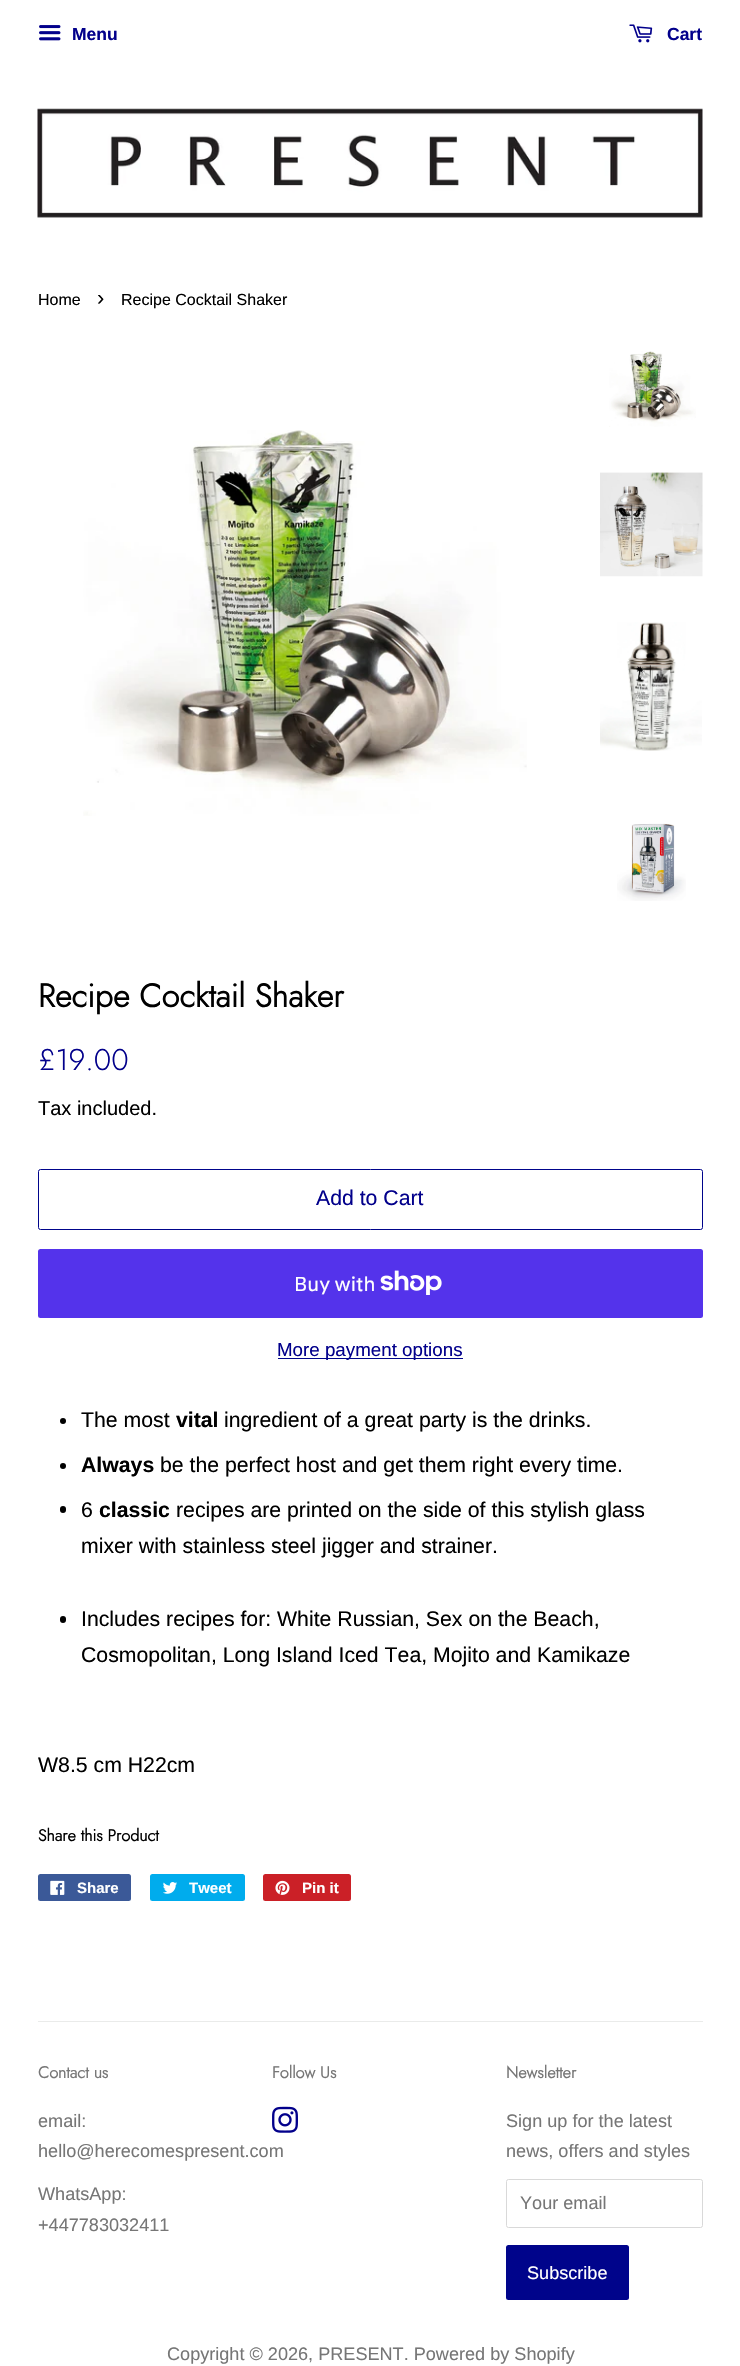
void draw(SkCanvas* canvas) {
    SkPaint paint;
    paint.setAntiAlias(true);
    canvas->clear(0xFFFFFFFF);
    canvas->drawImageRect(SkImages::DeferredFromEncodedData(SkData::MakeFromFileName("img1.png")), SkRect::MakeXYWH(39, 25, 22, 16), SkSamplingOptions());
    SkFont font1(fontMgr->matchFamilyStyle("Arimo", SkFontStyle::Bold()), 17.5f);
    font1.setSubpixel(true);
    paint.setColor(0xFF02008B);
    canvas->drawString("Menu", 72, 40, font1, paint);
    canvas->drawImageRect(SkImages::DeferredFromEncodedData(SkData::MakeFromFileName("img2.png")), SkRect::MakeXYWH(629, 24, 24, 19), SkSamplingOptions());
    canvas->drawString("Cart", 667, 40, font1, paint);
    canvas->drawImageRect(SkImages::DeferredFromEncodedData(SkData::MakeFromFileName("img3.png")), SkRect::MakeXYWH(37, 108, 666, 110), SkSamplingOptions());
    SkFont font2(fontMgr->matchFamilyStyle("Arimo", SkFontStyle::Normal()), 16);
    font2.setSubpixel(true);
    paint.setColor(0xFF000000);
    canvas->drawString("Home", 38, 305, font2, paint);
    SkFont font3(fontMgr->matchFamilyStyle("Arimo", SkFontStyle::Normal()), 22);
    font3.setSubpixel(true);
    canvas->drawString("›", 97, 305, font3, paint);
    canvas->drawString("Recipe Cocktail Shaker", 121, 305, font2, paint);
    canvas->drawImageRect(SkImages::DeferredFromEncodedData(SkData::MakeFromFileName("img4.png")), SkRect::MakeXYWH(83, 430, 444, 386), SkSamplingOptions());
    canvas->drawImageRect(SkImages::DeferredFromEncodedData(SkData::MakeFromFileName("img5.png")), SkRect::MakeXYWH(609, 351, 87, 76), SkSamplingOptions());
    canvas->drawImageRect(SkImages::DeferredFromEncodedData(SkData::MakeFromFileName("img6.png")), SkRect::MakeXYWH(600, 472, 103, 105), SkSamplingOptions());
    canvas->drawImageRect(SkImages::DeferredFromEncodedData(SkData::MakeFromFileName("img7.png")), SkRect::MakeXYWH(600, 622, 102, 129), SkSamplingOptions());
    canvas->drawImageRect(SkImages::DeferredFromEncodedData(SkData::MakeFromFileName("img8.png")), SkRect::MakeXYWH(617, 823, 69, 78), SkSamplingOptions());
    SkFont font4(fontMgr->matchFamilyStyle("Jost", SkFontStyle::Bold()), 32.5f);
    font4.setSubpixel(true);
    canvas->drawString("Recipe Cocktail Shaker", 38, 1007, font4, paint);
    SkFont font5(fontMgr->matchFamilyStyle("Jost", SkFontStyle(300, SkFontStyle::kNormal_Width, SkFontStyle::kUpright_Slant)), 30);
    font5.setSubpixel(true);
    paint.setColor(0xFF02008B);
    canvas->drawString("£19.00", 38, 1070, font5, paint);
    SkFont font6(fontMgr->matchFamilyStyle("Arimo", SkFontStyle::Normal()), 20);
    font6.setSubpixel(true);
    paint.setColor(0xFF000000);
    canvas->drawString("Tax included.", 38, 1115, font6, paint);
    paint.setStyle(SkPaint::kStroke_Style);
    paint.setStrokeWidth(1);
    paint.setColor(0xFF00048B);
    canvas->drawRoundRect(SkRect::MakeXYWH(38.5f, 1169.5f, 664, 60), 2, 2, paint);
    SkFont font7(fontMgr->matchFamilyStyle("Arimo", SkFontStyle::Normal()), 21.25f);
    font7.setSubpixel(true);
    paint.setStyle(SkPaint::kFill_Style);
    paint.setColor(0xFF02008B);
    canvas->drawString("Add to Cart", 316, 1205, font7, paint);
    paint.setColor(0xFF5433EB);
    canvas->drawRoundRect(SkRect::MakeXYWH(38, 1249, 665, 69), 2.5f, 2.5f, paint);
    SkFont font8(fontMgr->matchFamilyStyle("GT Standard", SkFontStyle::Normal()), 20);
    font8.setSubpixel(true);
    paint.setColor(0xFFFFFFFF);
    canvas->drawString("Buy with", 294, 1291, font8, paint);
    canvas->drawImageRect(SkImages::DeferredFromEncodedData(SkData::MakeFromFileName("img9.png")), SkRect::MakeXYWH(380, 1270, 62, 25), SkSamplingOptions());
    paint.setColor(0xFF00048B);
    canvas->drawRect(SkRect::MakeXYWH(278, 1358, 185, 1), paint);
    SkFont font9(fontMgr->matchFamilyStyle("Arimo", SkFontStyle::Normal()), 18.75f);
    font9.setSubpixel(true);
    paint.setColor(0xFF02008B);
    canvas->drawString("More payment options", 277, 1356, font9, paint);
    paint.setColor(0xFF000000);
    canvas->drawCircle(63, 1421, 3, paint);
    canvas->drawString("The most", 81, 1427, font7, paint);
    SkFont font10(fontMgr->matchFamilyStyle("Arimo", SkFontStyle::Bold()), 21.25f);
    font10.setSubpixel(true);
    canvas->drawString("vital", 176, 1427, font10, paint);
    canvas->drawString("ingredient of a great party is the drinks.", 224, 1427, font7, paint);
    canvas->drawCircle(63, 1466, 3, paint);
    canvas->drawString("Always", 81, 1472, font10, paint);
    canvas->drawString("be the perfect host and get them right every time.", 160, 1472, font7, paint);
    canvas->drawRoundRect(SkRect::MakeXYWH(60, 1506, 6, 7), 3, 3, paint);
    canvas->drawString("6", 81, 1517, font7, paint);
    canvas->drawString("classic", 99, 1517, font10, paint);
    canvas->drawString("recipes are printed on the side of this stylish glass", 176, 1517, font7, paint);
    canvas->drawString("mixer with stainless steel jigger and strainer.", 81, 1553, font7, paint);
    canvas->drawRoundRect(SkRect::MakeXYWH(60, 1616, 6, 7), 3, 3, paint);
    canvas->drawString("Includes recipes for: White Russian, Sex on the Beach,", 81, 1626, font7, paint);
    canvas->drawString("Cosmopolitan, Long Island Iced Tea, Mojito and Kamikaze", 81, 1662, font7, paint);
    canvas->drawString("W8.5 cm H22cm", 38, 1772, font7, paint);
    SkFont font11(fontMgr->matchFamilyStyle("Jost", SkFontStyle::Bold()), 16.25f);
    font11.setSubpixel(true);
    canvas->drawString("Share this Product", 38, 1841, font11, paint);
    paint.setColor(0xFF3B5998);
    canvas->drawRoundRect(SkRect::MakeXYWH(38, 1874, 93, 27), 2.5f, 2.5f, paint);
    canvas->drawImageRect(SkImages::DeferredFromEncodedData(SkData::MakeFromFileName("img10.png")), SkRect::MakeXYWH(50, 1880, 15, 15), SkSamplingOptions());
    SkFont font12(fontMgr->matchFamilyStyle("Liberation Sans", SkFontStyle::Bold()), 15);
    font12.setSubpixel(true);
    paint.setColor(0xFFFFFFFF);
    canvas->drawString("Share", 77, 1893, font12, paint);
    paint.setColor(0xFF00ACED);
    canvas->drawRoundRect(SkRect::MakeXYWH(150, 1874, 95, 27), 2.5f, 2.5f, paint);
    canvas->drawImageRect(SkImages::DeferredFromEncodedData(SkData::MakeFromFileName("img11.png")), SkRect::MakeXYWH(163, 1882, 14, 12), SkSamplingOptions());
    paint.setColor(0xFFFFFFFF);
    canvas->drawString("Tweet", 189, 1893, font12, paint);
    paint.setColor(0xFFCB2027);
    canvas->drawRoundRect(SkRect::MakeXYWH(263, 1874, 88, 27), 2.5f, 2.5f, paint);
    canvas->drawImageRect(SkImages::DeferredFromEncodedData(SkData::MakeFromFileName("img12.png")), SkRect::MakeXYWH(275, 1880, 15, 15), SkSamplingOptions());
    paint.setColor(0xFFFFFFFF);
    canvas->drawString("Pin it", 302, 1893, font12, paint);
    paint.setColor(0xFFEAEBEA);
    canvas->drawRect(SkRect::MakeXYWH(38, 2021, 665, 1), paint);
    paint.setColor(0xFF767676);
    canvas->drawString("Contact us", 38, 2078, font11, paint);
    SkFont font13(fontMgr->matchFamilyStyle("Arimo", SkFontStyle::Normal()), 18.1f);
    font13.setSubpixel(true);
    canvas->drawString("email:", 38, 2127, font13, paint);
    canvas->drawString("hello@herecomespresent.com", 38, 2157, font13, paint);
    canvas->drawString("WhatsApp:", 38, 2200, font13, paint);
    canvas->drawString("+447783032411", 38, 2231, font13, paint);
    canvas->drawString("Follow Us", 272, 2078, font11, paint);
    canvas->drawImageRect(SkImages::DeferredFromEncodedData(SkData::MakeFromFileName("img13.png")), SkRect::MakeXYWH(272, 2106, 26, 27), SkSamplingOptions());
    canvas->drawString("Newsletter", 506, 2078, font11, paint);
    canvas->drawString("Sign up for the latest", 506, 2127, font13, paint);
    canvas->drawString("news, offers and styles", 506, 2157, font13, paint);
    paint.setStyle(SkPaint::kStroke_Style);
    paint.setColor(0xFFD9D9D9);
    canvas->drawRoundRect(SkRect::MakeXYWH(506.5f, 2179.5f, 196, 48), 2, 2, paint);
    paint.setStyle(SkPaint::kFill_Style);
    paint.setColor(0xFF767676);
    canvas->drawString("Your email", 520, 2209, font13, paint);
    paint.setColor(0xFF00048B);
    canvas->drawRoundRect(SkRect::MakeXYWH(506, 2245, 123, 55), 2.5f, 2.5f, paint);
    paint.setColor(0xFFFFFFFF);
    canvas->drawString("Subscribe", 527, 2279, font13, paint);
    paint.setColor(0xFF767676);
    canvas->drawString("Copyright © 2026, PRESENT. Powered by Shopify", 167, 2360, font13, paint);
}
